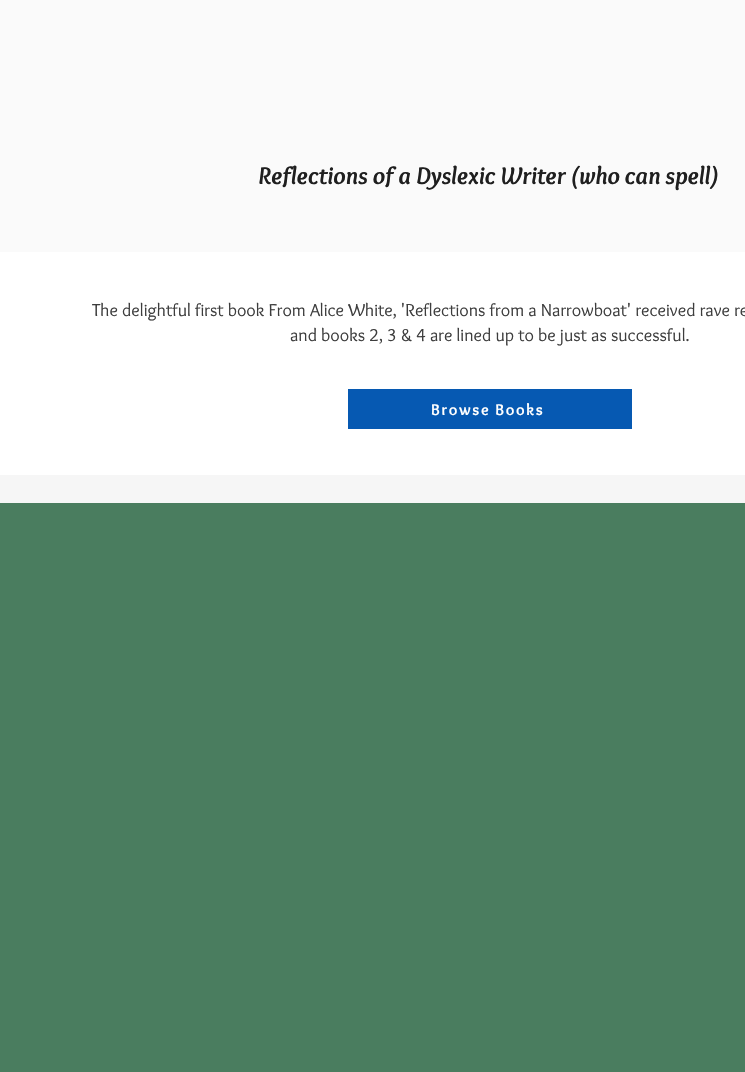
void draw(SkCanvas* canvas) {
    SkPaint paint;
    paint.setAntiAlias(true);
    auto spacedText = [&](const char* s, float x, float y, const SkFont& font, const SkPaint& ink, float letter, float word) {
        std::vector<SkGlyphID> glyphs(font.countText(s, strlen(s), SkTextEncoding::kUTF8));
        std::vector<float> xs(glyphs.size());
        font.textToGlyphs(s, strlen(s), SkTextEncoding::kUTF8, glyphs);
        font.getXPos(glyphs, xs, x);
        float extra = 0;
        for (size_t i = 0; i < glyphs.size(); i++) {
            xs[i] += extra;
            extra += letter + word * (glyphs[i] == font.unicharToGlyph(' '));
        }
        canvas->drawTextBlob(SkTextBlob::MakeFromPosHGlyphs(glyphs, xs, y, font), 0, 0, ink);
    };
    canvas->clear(0xFFF6F6F6);
    paint.setColor(0xFFFAFAFA);
    canvas->drawRect(SkRect::MakeXYWH(0, 0, 745, 252), paint);
    SkFont font1(fontMgr->matchFamilyStyle("Overlock", SkFontStyle::BoldItalic()), 25);
    font1.setSubpixel(true);
    paint.setColor(0xFF1F1F1F);
    canvas->drawString("Reflections of a Dyslexic Writer (who can spell)", 258, 184, font1, paint);
    paint.setColor(0xFFFFFFFF);
    canvas->drawRect(SkRect::MakeXYWH(0, 252, 745, 223), paint);
    SkFont font2(fontMgr->matchFamilyStyle("Overlock", SkFontStyle::Normal()), 18);
    font2.setSubpixel(true);
    paint.setColor(0xFF3D3D3D);
    canvas->drawString("The delightful first book From Alice White, 'Reflections from a Narrowboat' received rave re", 92, 316, font2, paint);
    canvas->drawString("and books 2, 3 & 4 are lined up to be just as successful.", 290, 341, font2, paint);
    paint.setColor(0xFF0659B2);
    canvas->drawRect(SkRect::MakeXYWH(348, 389, 284, 40), paint);
    SkFont font3(fontMgr->matchFamilyStyle("Overlock", SkFontStyle::Bold()), 16);
    font3.setSubpixel(true);
    paint.setColor(0xFFFFFFFF);
    spacedText("Browse Books", 431, 415, font3, paint, 1.6f, 0);
    paint.setColor(0xFF4A7D5F);
    canvas->drawRect(SkRect::MakeXYWH(0, 503, 745, 569), paint);
}
